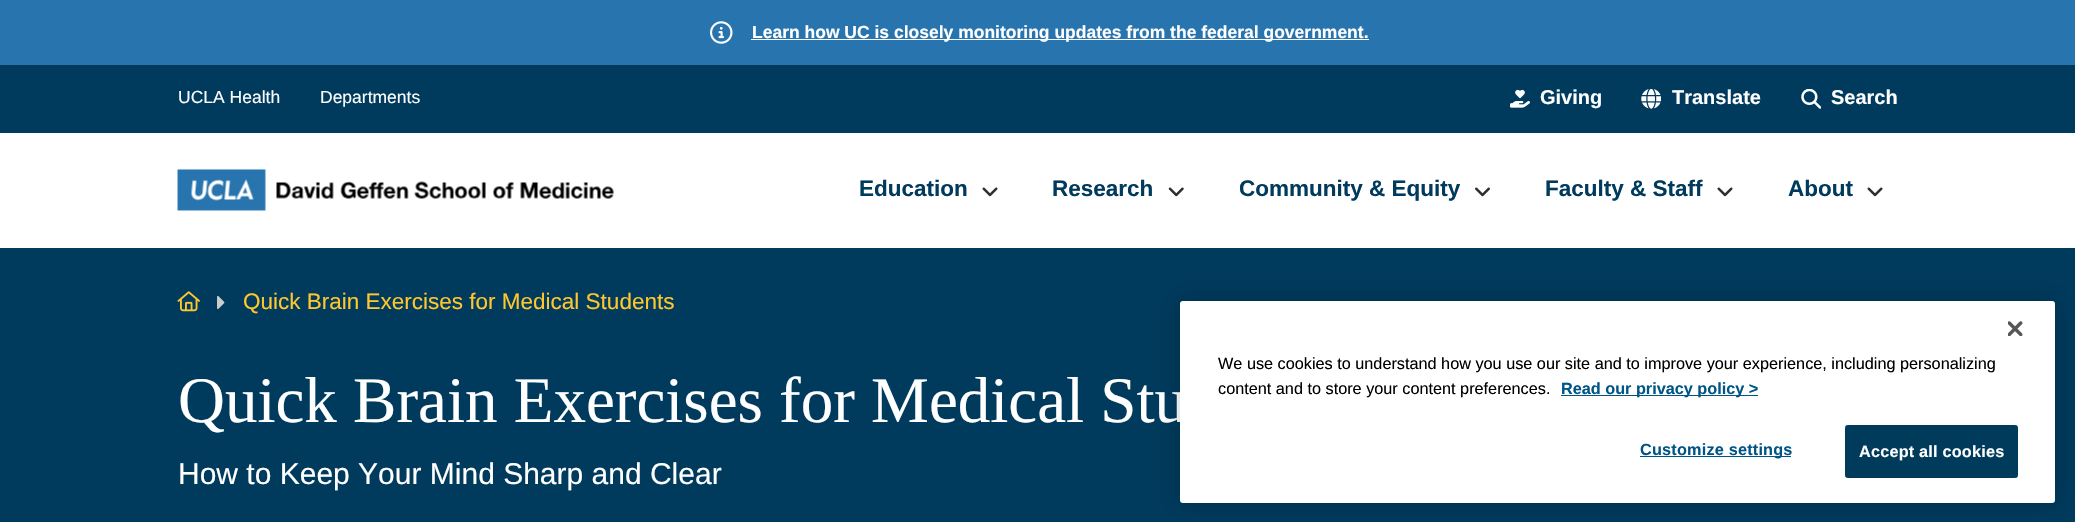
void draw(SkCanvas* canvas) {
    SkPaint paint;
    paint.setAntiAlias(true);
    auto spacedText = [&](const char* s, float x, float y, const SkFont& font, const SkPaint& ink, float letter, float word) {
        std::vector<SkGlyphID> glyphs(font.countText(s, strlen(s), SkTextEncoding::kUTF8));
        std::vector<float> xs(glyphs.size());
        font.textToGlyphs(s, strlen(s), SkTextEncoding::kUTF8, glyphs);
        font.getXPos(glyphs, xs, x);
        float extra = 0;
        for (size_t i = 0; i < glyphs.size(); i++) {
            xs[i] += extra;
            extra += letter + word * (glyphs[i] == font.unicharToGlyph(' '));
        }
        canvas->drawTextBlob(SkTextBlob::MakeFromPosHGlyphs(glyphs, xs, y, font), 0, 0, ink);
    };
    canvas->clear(0xFF003A5C);
    paint.setColor(0xFFFFFFFF);
    canvas->drawRect(SkRect::MakeXYWH(0, 133, 2075, 115), paint);
    paint.setColor(0xFF2874AF);
    canvas->drawRect(SkRect::MakeXYWH(0, 0, 2075, 65), paint);
    canvas->drawImageRect(SkImages::DeferredFromEncodedData(SkData::MakeFromFileName("img1.png")), SkRect::MakeXYWH(710, 21, 23, 23), SkSamplingOptions());
    paint.setColor(0xFFFFFFFF);
    canvas->drawRect(SkRect::MakeXYWH(751, 39, 618, 1), paint);
    SkFont font1(fontMgr->matchFamilyStyle("Liberation Sans", SkFontStyle::Bold()), 17.5f);
    font1.setSubpixel(true);
    canvas->drawString("Learn how UC is closely monitoring updates from the federal government.", 752, 38, font1, paint);
    SkFont font2(fontMgr->matchFamilyStyle("Liberation Sans", SkFontStyle::Normal()), 17.5f);
    font2.setSubpixel(true);
    canvas->drawString("UCLA Health", 178, 103, font2, paint);
    canvas->drawString("Departments", 320, 103, font2, paint);
    canvas->drawImageRect(SkImages::DeferredFromEncodedData(SkData::MakeFromFileName("img2.png")), SkRect::MakeXYWH(1510, 89, 20, 19), SkSamplingOptions());
    SkFont font3(fontMgr->matchFamilyStyle("Liberation Sans", SkFontStyle::Bold()), 20);
    font3.setSubpixel(true);
    canvas->drawString("Giving", 1540, 104, font3, paint);
    canvas->drawImageRect(SkImages::DeferredFromEncodedData(SkData::MakeFromFileName("img3.png")), SkRect::MakeXYWH(1641, 89, 20, 20), SkSamplingOptions());
    canvas->drawString("Translate", 1672, 104, font3, paint);
    canvas->drawImageRect(SkImages::DeferredFromEncodedData(SkData::MakeFromFileName("img4.png")), SkRect::MakeXYWH(1801, 89, 20, 20), SkSamplingOptions());
    canvas->drawString("Search", 1831, 104, font3, paint);
    canvas->drawImageRect(SkImages::DeferredFromEncodedData(SkData::MakeFromFileName("img5.png")), SkRect::MakeXYWH(177, 168, 437, 43), SkSamplingOptions());
    SkFont font4(fontMgr->matchFamilyStyle("Liberation Sans", SkFontStyle::Bold()), 22.5f);
    font4.setSubpixel(true);
    paint.setColor(0xFF003A5C);
    canvas->drawString("Education", 859, 196, font4, paint);
    canvas->drawImageRect(SkImages::DeferredFromEncodedData(SkData::MakeFromFileName("img6.png")), SkRect::MakeXYWH(982, 187, 16, 10), SkSamplingOptions());
    canvas->drawString("Research", 1052, 196, font4, paint);
    canvas->drawImageRect(SkImages::DeferredFromEncodedData(SkData::MakeFromFileName("img7.png")), SkRect::MakeXYWH(1168, 187, 16, 10), SkSamplingOptions());
    canvas->drawString("Community & Equity", 1239, 196, font4, paint);
    canvas->drawImageRect(SkImages::DeferredFromEncodedData(SkData::MakeFromFileName("img8.png")), SkRect::MakeXYWH(1475, 187, 15, 10), SkSamplingOptions());
    canvas->drawString("Faculty & Staff", 1545, 196, font4, paint);
    canvas->drawImageRect(SkImages::DeferredFromEncodedData(SkData::MakeFromFileName("img6.png")), SkRect::MakeXYWH(1717, 187, 16, 10), SkSamplingOptions());
    canvas->drawString("About", 1788, 196, font4, paint);
    canvas->drawImageRect(SkImages::DeferredFromEncodedData(SkData::MakeFromFileName("img6.png")), SkRect::MakeXYWH(1867, 187, 16, 10), SkSamplingOptions());
    canvas->drawImageRect(SkImages::DeferredFromEncodedData(SkData::MakeFromFileName("img9.png")), SkRect::MakeXYWH(177, 291, 23, 21), SkSamplingOptions());
    canvas->drawImageRect(SkImages::DeferredFromEncodedData(SkData::MakeFromFileName("img10.png")), SkRect::MakeXYWH(217, 296, 8, 13), SkSamplingOptions());
    SkFont font5(fontMgr->matchFamilyStyle("Liberation Sans", SkFontStyle::Normal()), 22.5f);
    font5.setSubpixel(true);
    paint.setColor(0xFFFFC72E);
    canvas->drawString("Quick Brain Exercises for Medical Students", 243, 309, font5, paint);
    SkFont font6(fontMgr->matchFamilyStyle("Liberation Serif", SkFontStyle::Normal()), 65);
    font6.setSubpixel(true);
    paint.setColor(0xFFFFFFFF);
    canvas->drawString("Quick Brain Exercises for Medical Stu", 178, 422, font6, paint);
    SkFont font7(fontMgr->matchFamilyStyle("Liberation Sans", SkFontStyle::Normal()), 30);
    font7.setSubpixel(true);
    canvas->drawString("How to Keep Your Mind Sharp and Clear", 178, 484, font7, paint);
    paint.setColor(0x33000000);
    paint.setMaskFilter(SkMaskFilter::MakeBlur(kNormal_SkBlurStyle, 11));
    canvas->drawRoundRect(SkRect::MakeXYWH(1180, 301, 875, 202), 3, 3, paint);
    paint.setMaskFilter(nullptr);
    paint.setColor(0xFFFFFFFF);
    canvas->drawRoundRect(SkRect::MakeXYWH(1180, 301, 875, 202), 3, 3, paint);
    canvas->drawImageRect(SkImages::DeferredFromEncodedData(SkData::MakeFromFileName("img11.png")), SkRect::MakeXYWH(2008, 321, 15, 15), SkSamplingOptions());
    SkFont font8(fontMgr->matchFamilyStyle("Liberation Sans", SkFontStyle::Normal()), 16.25f);
    font8.setSubpixel(true);
    paint.setColor(0xFF000000);
    canvas->drawString("We use cookies to understand how you use our site and to improve your experience, including personalizing", 1218, 369, font8, paint);
    canvas->drawString("content and to store your content preferences.", 1218, 394, font8, paint);
    paint.setColor(0xFF005587);
    canvas->drawRect(SkRect::MakeXYWH(1561, 395, 197, 1), paint);
    SkFont font9(fontMgr->matchFamilyStyle("Liberation Sans", SkFontStyle::Bold()), 16.25f);
    font9.setSubpixel(true);
    canvas->drawString("Read our privacy policy >", 1561, 394, font9, paint);
    canvas->drawRect(SkRect::MakeXYWH(1640, 456, 151, 1), paint);
    spacedText("Customize settings", 1640, 455, font9, paint, 0.2f, 0);
    paint.setColor(0xFF003B5C);
    canvas->drawRoundRect(SkRect::MakeXYWH(1845.5f, 425.5f, 172, 52), 2, 2, paint);
    paint.setStyle(SkPaint::kStroke_Style);
    paint.setStrokeWidth(1);
    canvas->drawRoundRect(SkRect::MakeXYWH(1845.5f, 425.5f, 172, 52), 2, 2, paint);
    paint.setStyle(SkPaint::kFill_Style);
    paint.setColor(0xFFFFFFFF);
    spacedText("Accept all cookies", 1859, 457, font9, paint, 0.2f, 0);
}
